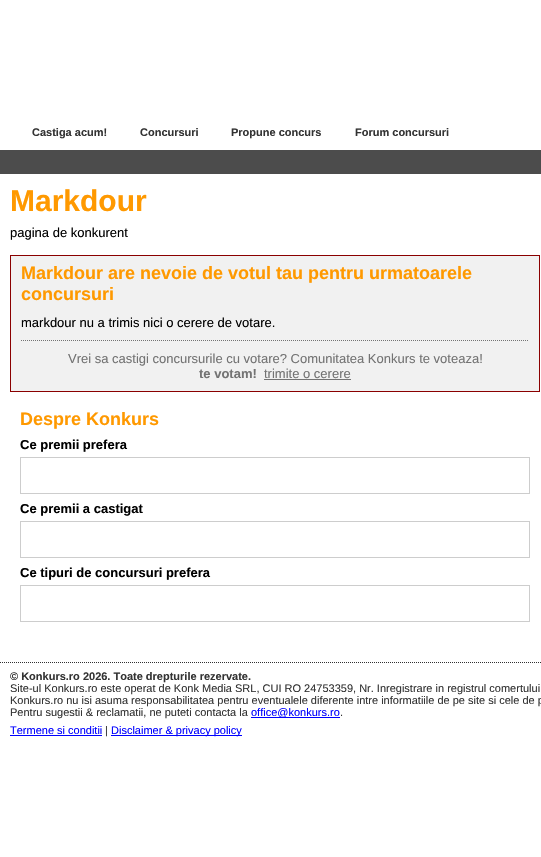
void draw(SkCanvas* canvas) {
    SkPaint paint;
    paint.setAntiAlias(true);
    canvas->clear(0xFFFFFFFF);
    SkFont font1(fontMgr->matchFamilyStyle("Liberation Sans", SkFontStyle::Bold()), 11);
    font1.setSubpixel(true);
    paint.setColor(0xFF333333);
    canvas->drawString("Castiga acum!", 32, 136, font1, paint);
    canvas->drawString("Concursuri", 140, 136, font1, paint);
    canvas->drawString("Propune concurs", 231, 136, font1, paint);
    canvas->drawString("Forum concursuri", 355, 136, font1, paint);
    paint.setColor(0xFF4C4C4C);
    canvas->drawRect(SkRect::MakeXYWH(0, 150, 541, 24), paint);
    SkFont font2(fontMgr->matchFamilyStyle("Liberation Sans", SkFontStyle::Bold()), 30);
    font2.setSubpixel(true);
    paint.setColor(0xFFFF9900);
    canvas->drawString("Markdour", 10, 211, font2, paint);
    SkFont font3(fontMgr->matchFamilyStyle("Liberation Sans", SkFontStyle::Normal()), 13);
    font3.setSubpixel(true);
    paint.setColor(0xFF000000);
    canvas->drawString("pagina de konkurent", 10, 237, font3, paint);
    paint.setColor(0xFFF1F1F1);
    canvas->drawRect(SkRect::MakeXYWH(10.5f, 255.5f, 529, 136), paint);
    paint.setStyle(SkPaint::kStroke_Style);
    paint.setStrokeWidth(1);
    paint.setColor(0xFF8A0000);
    canvas->drawRect(SkRect::MakeXYWH(10.5f, 255.5f, 529, 136), paint);
    SkFont font4(fontMgr->matchFamilyStyle("Liberation Sans", SkFontStyle::Bold()), 18);
    font4.setSubpixel(true);
    paint.setStyle(SkPaint::kFill_Style);
    paint.setColor(0xFFFF9900);
    canvas->drawString("Markdour are nevoie de votul tau pentru urmatoarele", 21, 279, font4, paint);
    canvas->drawString("concursuri", 21, 300, font4, paint);
    paint.setColor(0xFF000000);
    canvas->drawString("markdour nu a trimis nici o cerere de votare.", 21, 327, font3, paint);
    paint.setStyle(SkPaint::kStroke_Style);
    paint.setColor(0xFF737373);
    paint.setPathEffect(SkDashPathEffect::Make({{1, 1}}, 0));
    canvas->drawPath(SkPathBuilder().moveTo(21, 340.5f).lineTo(529, 340.5f).detach(), paint);
    paint.setPathEffect(nullptr);
    paint.setStyle(SkPaint::kFill_Style);
    canvas->drawString("Vrei sa castigi concursurile cu votare? Comunitatea Konkurs te voteaza!", 68, 363, font3, paint);
    SkFont font5(fontMgr->matchFamilyStyle("Liberation Sans", SkFontStyle::Bold()), 13);
    font5.setSubpixel(true);
    canvas->drawString("te votam!", 199, 378, font5, paint);
    canvas->drawString("trimite o cerere", 264, 378, font3, paint);
    canvas->drawRect(SkRect::MakeXYWH(264, 379, 87, 1), paint);
    paint.setColor(0xFFFF9900);
    canvas->drawString("Despre Konkurs", 20, 425, font4, paint);
    paint.setColor(0xFF000000);
    canvas->drawString("Ce premii prefera", 20, 449, font5, paint);
    paint.setStyle(SkPaint::kStroke_Style);
    paint.setColor(0xFFCDCDCD);
    canvas->drawRect(SkRect::MakeXYWH(20.5f, 457.5f, 509, 36), paint);
    paint.setStyle(SkPaint::kFill_Style);
    paint.setColor(0xFF000000);
    canvas->drawString("Ce premii a castigat", 20, 513, font5, paint);
    paint.setStyle(SkPaint::kStroke_Style);
    paint.setColor(0xFFCDCDCD);
    canvas->drawRect(SkRect::MakeXYWH(20.5f, 521.5f, 509, 36), paint);
    paint.setStyle(SkPaint::kFill_Style);
    paint.setColor(0xFF000000);
    canvas->drawString("Ce tipuri de concursuri prefera", 20, 577, font5, paint);
    paint.setStyle(SkPaint::kStroke_Style);
    paint.setColor(0xFFCDCDCD);
    canvas->drawRect(SkRect::MakeXYWH(20.5f, 585.5f, 509, 36), paint);
    paint.setColor(0xFF303030);
    paint.setPathEffect(SkDashPathEffect::Make({{1, 1}}, 0));
    canvas->drawPath(SkPathBuilder().moveTo(0, 662.5f).lineTo(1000, 662.5f).detach(), paint);
    paint.setPathEffect(nullptr);
    paint.setStyle(SkPaint::kFill_Style);
    paint.setColor(0xFF333333);
    canvas->drawString("© Konkurs.ro 2026. Toate drepturile rezervate.", 10, 680, font1, paint);
    SkFont font6(fontMgr->matchFamilyStyle("Liberation Sans", SkFontStyle::Normal()), 11);
    font6.setSubpixel(true);
    canvas->drawString("Site-ul Konkurs.ro este operat de Konk Media SRL, CUI RO 24753359, Nr. Inregistrare in registrul comertului", 10, 692, font6, paint);
    canvas->drawString("Konkurs.ro nu isi asuma responsabilitatea pentru eventualele diferente intre informatiile de pe site si cele de p", 10, 704, font6, paint);
    canvas->drawString("Pentru sugestii & reclamatii, ne puteti contacta la", 10, 716, font6, paint);
    paint.setColor(0xFF0000FF);
    canvas->drawRect(SkRect::MakeXYWH(251, 717, 89, 1), paint);
    canvas->drawString("office@konkurs.ro", 251, 716, font6, paint);
    paint.setColor(0xFF333333);
    canvas->drawString(".", 340, 716, font6, paint);
    paint.setColor(0xFF0000FF);
    canvas->drawString("Termene si conditii", 10, 734, font6, paint);
    canvas->drawRect(SkRect::MakeXYWH(10, 735, 92, 1), paint);
    paint.setColor(0xFF333333);
    canvas->drawString("|", 105, 734, font6, paint);
    paint.setColor(0xFF0000FF);
    canvas->drawRect(SkRect::MakeXYWH(111, 735, 131, 1), paint);
    canvas->drawString("Disclaimer & privacy policy", 111, 734, font6, paint);
}
